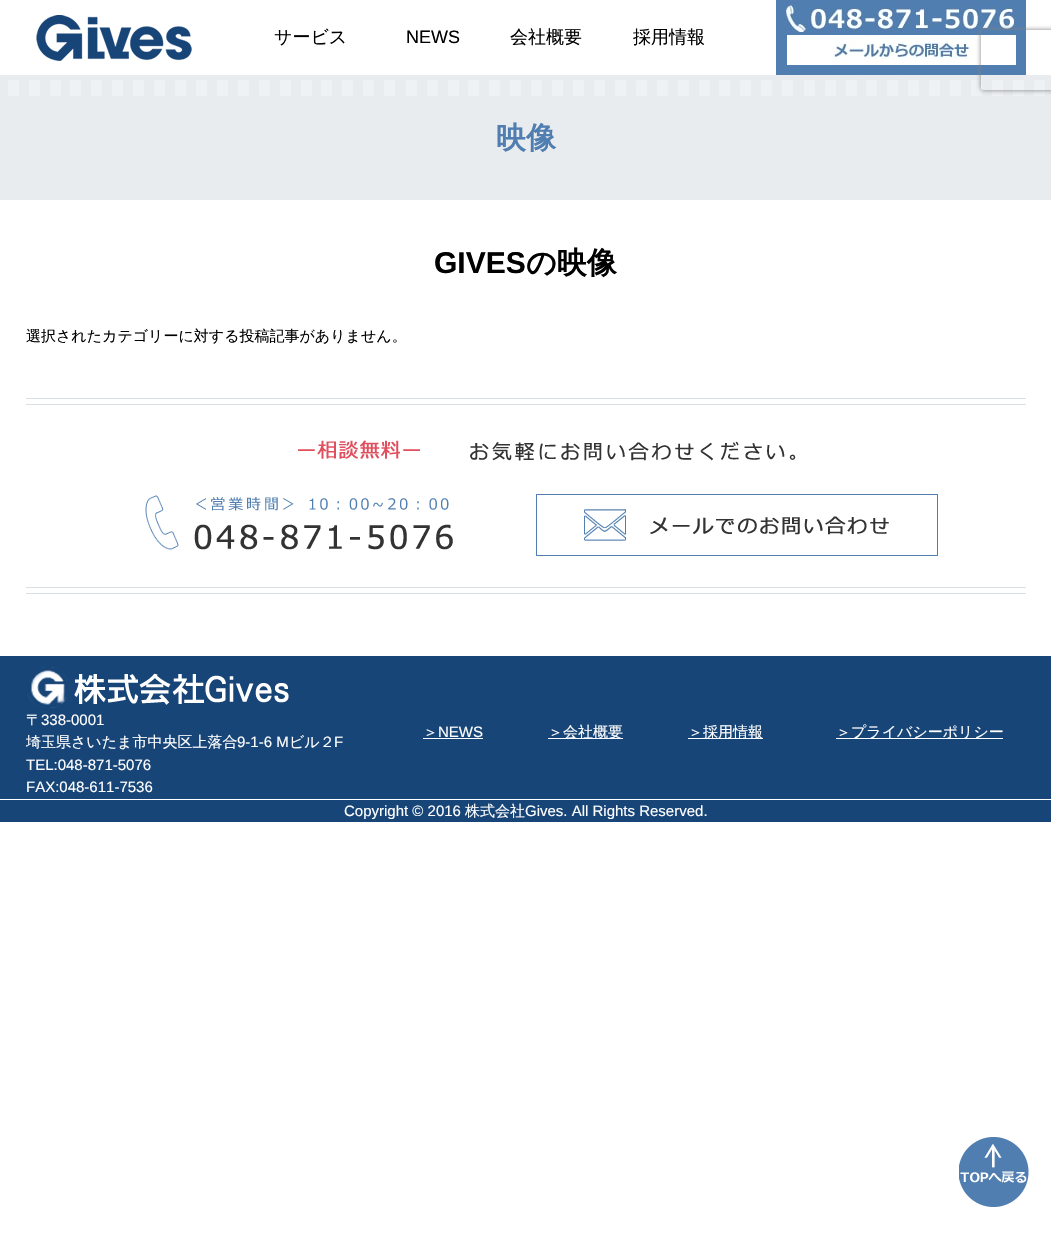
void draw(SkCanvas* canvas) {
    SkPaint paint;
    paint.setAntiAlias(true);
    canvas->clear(0xFFFFFFFF);
    canvas->drawImageRect(SkImages::DeferredFromEncodedData(SkData::MakeFromFileName("img1.png")), SkRect::MakeXYWH(36, 15, 156, 46), SkSamplingOptions());
    SkFont font1(fontMgr->matchFamilyStyle("WenQuanYi Zen Hei", SkFontStyle(500, SkFontStyle::kNormal_Width, SkFontStyle::kUpright_Slant)), 18);
    font1.setSubpixel(true);
    paint.setColor(0xFF000000);
    canvas->drawString("サービス", 274, 43, font1, paint);
    SkFont font2(fontMgr->matchFamilyStyle("Liberation Sans", SkFontStyle::Normal()), 18);
    font2.setSubpixel(true);
    canvas->drawString("NEWS", 406, 43, font2, paint);
    canvas->drawString("会社概要", 510, 43, font1, paint);
    canvas->drawString("採用情報", 633, 43, font1, paint);
    paint.setColor(0xFF507EB1);
    canvas->drawRect(SkRect::MakeXYWH(776, 0, 250, 75), paint);
    canvas->drawImageRect(SkImages::DeferredFromEncodedData(SkData::MakeFromFileName("img2.png")), SkRect::MakeXYWH(776, 0, 240, 33), SkSamplingOptions());
    canvas->drawImageRect(SkImages::DeferredFromEncodedData(SkData::MakeFromFileName("img3.png")), SkRect::MakeXYWH(787, 35, 229, 30), SkSamplingOptions());
    canvas->drawImageRect(SkImages::DeferredFromEncodedData(SkData::MakeFromFileName("img4.png")), SkRect::MakeXYWH(0, 75, 1051, 125), SkSamplingOptions());
    canvas->save();
    canvas->clipPath(SkPathBuilder(SkPathFillType::kEvenOdd).moveTo(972, 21).lineTo(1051, 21).lineTo(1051, 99).lineTo(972, 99).close().moveTo(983, 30).lineTo(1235, 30).cubicTo(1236, 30, 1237, 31, 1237, 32).lineTo(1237, 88).cubicTo(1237, 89, 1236, 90, 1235, 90).lineTo(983, 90).cubicTo(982, 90, 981, 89, 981, 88).lineTo(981, 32).cubicTo(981, 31, 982, 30, 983, 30).close().detach(), true);
    paint.setColor(0xFF808080);
    paint.setMaskFilter(SkMaskFilter::MakeBlur(kNormal_SkBlurStyle, 2.5f));
    canvas->drawRoundRect(SkRect::MakeXYWH(981, 30, 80, 60), 2, 2, paint);
    paint.setMaskFilter(nullptr);
    canvas->restore();
    SkFont font3(fontMgr->matchFamilyStyle("WenQuanYi Zen Hei", SkFontStyle::Bold()), 30);
    font3.setSubpixel(true);
    paint.setColor(0xFF507EB1);
    canvas->drawString("映像", 496, 148, font3, paint);
    SkFont font4(fontMgr->matchFamilyStyle("Liberation Sans", SkFontStyle::Bold()), 30);
    font4.setSubpixel(true);
    paint.setColor(0xFF000000);
    canvas->drawString("GIVES", 434, 273, font4, paint);
    canvas->drawString("の映像", 526, 273, font3, paint);
    SkFont font5(fontMgr->matchFamilyStyle("WenQuanYi Zen Hei", SkFontStyle(500, SkFontStyle::kNormal_Width, SkFontStyle::kUpright_Slant)), 15);
    font5.setSubpixel(true);
    canvas->drawString("選択されたカテゴリーに対する投稿記事がありません。", 26, 341, font5, paint);
    canvas->drawImageRect(SkImages::DeferredFromEncodedData(SkData::MakeFromFileName("img5.png")), SkRect::MakeXYWH(26, 398, 1000, 196), SkSamplingOptions());
    canvas->drawImageRect(SkImages::DeferredFromEncodedData(SkData::MakeFromFileName("img6.png")), SkRect::MakeXYWH(536, 494, 402, 62), SkSamplingOptions());
    paint.setColor(0xFF184577);
    canvas->drawRect(SkRect::MakeXYWH(0, 656, 1051, 166), paint);
    paint.setColor(0xFFFFFFFF);
    canvas->drawRect(SkRect::MakeXYWH(0, 799, 1051, 1), paint);
    canvas->drawImageRect(SkImages::DeferredFromEncodedData(SkData::MakeFromFileName("img7.png")), SkRect::MakeXYWH(27, 667, 262, 41), SkSamplingOptions());
    canvas->drawString("〒", 26, 725, font5, paint);
    SkFont font6(fontMgr->matchFamilyStyle("Liberation Sans", SkFontStyle::Normal()), 15);
    font6.setSubpixel(true);
    canvas->drawString("338-0001", 41, 725, font6, paint);
    canvas->drawString("埼玉県さいたま市中央区上落合", 26, 747, font5, paint);
    canvas->drawString("9-1-6 M", 237, 747, font6, paint);
    canvas->drawString("ビル２", 289, 747, font5, paint);
    canvas->drawString("F", 334, 747, font6, paint);
    canvas->drawString("TEL:048-871-5076", 26, 770, font6, paint);
    canvas->drawString("FAX:048-611-7536", 26, 792, font6, paint);
    canvas->drawString("＞", 423, 737, font5, paint);
    canvas->drawRect(SkRect::MakeXYWH(423, 738, 60, 1), paint);
    canvas->drawString("NEWS", 438, 737, font6, paint);
    canvas->drawRect(SkRect::MakeXYWH(548, 738, 75, 1), paint);
    canvas->drawString("＞会社概要", 548, 737, font5, paint);
    canvas->drawRect(SkRect::MakeXYWH(688, 738, 75, 1), paint);
    canvas->drawString("＞採用情報", 688, 737, font5, paint);
    canvas->drawRect(SkRect::MakeXYWH(836, 738, 167, 1), paint);
    canvas->drawString("＞プライバシーポリシー", 836, 737, font5, paint);
    canvas->drawString("Copyright © 2016", 344, 816, font6, paint);
    canvas->drawString("株式会社", 465, 816, font5, paint);
    canvas->drawString("Gives. All Rights Reserved.", 525, 816, font6, paint);
    canvas->drawImageRect(SkImages::DeferredFromEncodedData(SkData::MakeFromFileName("img8.png")), SkRect::MakeXYWH(959, 1137, 70, 70), SkSamplingOptions());
}
